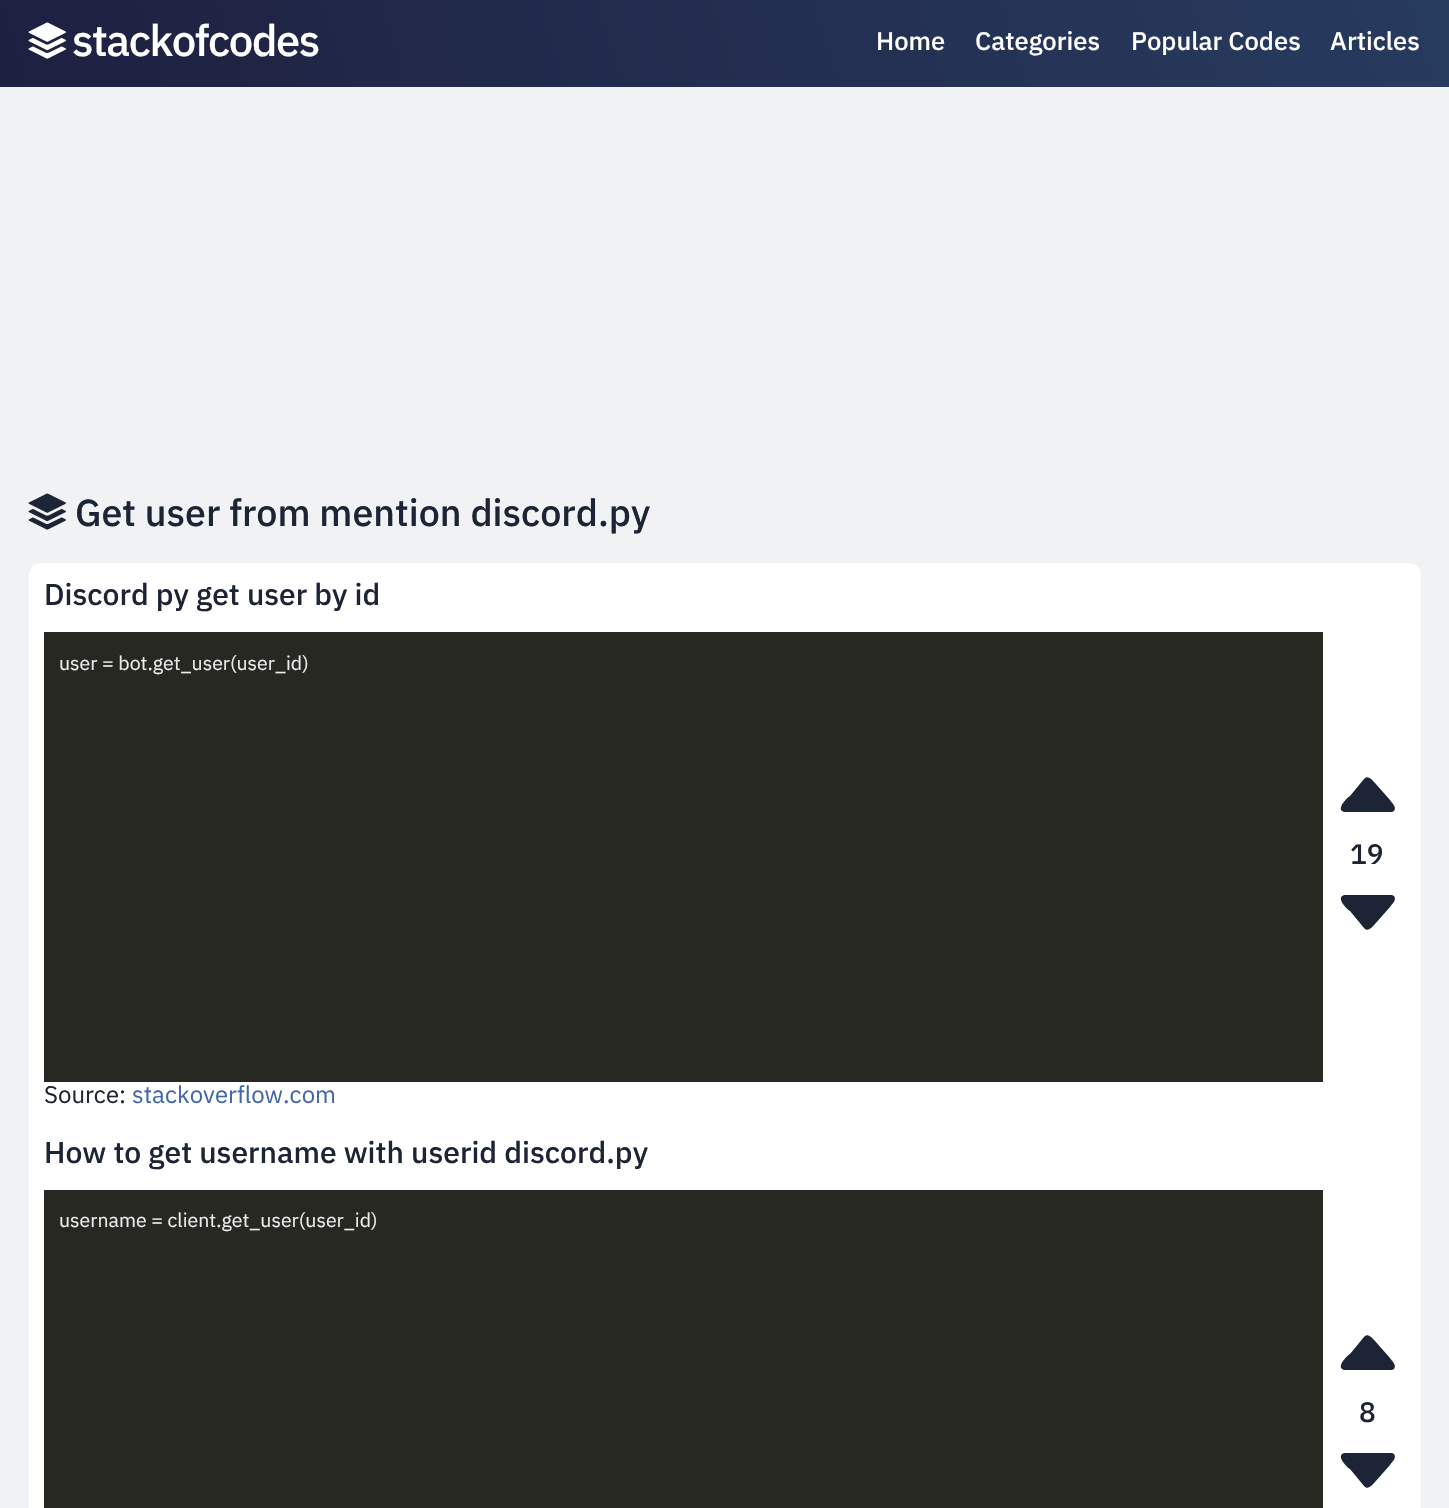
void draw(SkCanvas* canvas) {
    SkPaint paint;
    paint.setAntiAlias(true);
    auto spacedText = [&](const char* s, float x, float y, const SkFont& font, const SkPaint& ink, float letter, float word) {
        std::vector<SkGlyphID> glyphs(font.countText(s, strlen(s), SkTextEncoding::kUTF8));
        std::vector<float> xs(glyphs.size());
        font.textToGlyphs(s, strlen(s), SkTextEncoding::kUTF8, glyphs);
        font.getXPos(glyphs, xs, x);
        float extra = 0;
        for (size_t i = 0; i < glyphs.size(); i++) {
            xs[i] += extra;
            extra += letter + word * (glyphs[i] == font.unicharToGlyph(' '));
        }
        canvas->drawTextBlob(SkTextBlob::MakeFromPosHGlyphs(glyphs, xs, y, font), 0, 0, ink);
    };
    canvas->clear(0xFFF0F2F4);
    {
        const SkColor colors[] = {0xFF1E2040, 0xFF283E62};
        const float stops[] = {0, 1};
        const SkPoint ends[] = {{50, 250}, {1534, -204}};
        paint.setShader(SkGradientShader::MakeLinear(ends, colors, stops, 2, SkTileMode::kClamp));
        paint.setAlpha(255);
    }
    canvas->drawRect(SkRect::MakeXYWH(0, 0, 1449, 87), paint);
    canvas->drawImageRect(SkImages::DeferredFromEncodedData(SkData::MakeFromFileName("img1.png")), SkRect::MakeXYWH(28, 22, 38, 37), SkSamplingOptions());
    SkFont font1(fontMgr->matchFamilyStyle("IBM Plex Sans Thai Looped", SkFontStyle(500, SkFontStyle::kNormal_Width, SkFontStyle::kUpright_Slant)), 43.5f);
    font1.setSubpixel(true);
    paint.setShader(nullptr);
    paint.setColor(0xFFFFFFFF);
    spacedText("stackofcodes", 72, 56, font1, paint, -1.5f, 0);
    SkFont font2(fontMgr->matchFamilyStyle("IBM Plex Sans Thai Looped", SkFontStyle(500, SkFontStyle::kNormal_Width, SkFontStyle::kUpright_Slant)), 25.5f);
    font2.setSubpixel(true);
    canvas->drawString("Home", 876, 50, font2, paint);
    canvas->drawString("Categories", 975, 50, font2, paint);
    canvas->drawString("Popular Codes", 1131, 50, font2, paint);
    canvas->drawString("Articles", 1330, 50, font2, paint);
    canvas->drawImageRect(SkImages::DeferredFromEncodedData(SkData::MakeFromFileName("img2.png")), SkRect::MakeXYWH(28, 493, 38, 37), SkSamplingOptions());
    SkFont font3(fontMgr->matchFamilyStyle("IBM Plex Sans Thai Looped", SkFontStyle(500, SkFontStyle::kNormal_Width, SkFontStyle::kUpright_Slant)), 37.5f);
    font3.setSubpixel(true);
    paint.setColor(0xFF1C2435);
    canvas->drawString("Get user from mention discord.py", 75, 526, font3, paint);
    paint.setColor(0xFFFFFFFF);
    canvas->drawRoundRect(SkRect::MakeXYWH(29, 563, 1392, 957), 12, 12, paint);
    SkFont font4(fontMgr->matchFamilyStyle("IBM Plex Sans Thai Looped", SkFontStyle(500, SkFontStyle::kNormal_Width, SkFontStyle::kUpright_Slant)), 30);
    font4.setSubpixel(true);
    paint.setColor(0xFF1C2435);
    canvas->drawString("Discord py get user by id", 44, 605, font4, paint);
    paint.setColor(0xFF272822);
    canvas->drawRect(SkRect::MakeXYWH(44, 632, 1279, 450), paint);
    SkFont font5(fontMgr->matchFamilyStyle("IBM Plex Sans Thai Looped", SkFontStyle::Normal()), 19.5f);
    font5.setSubpixel(true);
    paint.setColor(0xFFECECEC);
    canvas->drawString("user = bot.get_user(user_id)", 59, 670, font5, paint);
    paint.setColor(0xFF1C2435);
    canvas->drawPath(SkPathBuilder().moveTo(1364, 779).lineTo(1350, 796).cubicTo(1348, 797, 1335, 809, 1344, 812).lineTo(1383, 812).lineTo(1392, 812).lineTo(1394, 811).cubicTo(1397, 807, 1392, 803, 1390, 800).lineTo(1375, 783).cubicTo(1373, 781, 1368, 774, 1364, 779).close().detach(), paint);
    SkFont font6(fontMgr->matchFamilyStyle("IBM Plex Sans Thai Looped", SkFontStyle(500, SkFontStyle::kNormal_Width, SkFontStyle::kUpright_Slant)), 28);
    font6.setSubpixel(true);
    canvas->drawString("19", 1350, 864, font6, paint);
    canvas->drawPath(SkPathBuilder().moveTo(1364, 928).lineTo(1350, 911).cubicTo(1348, 910, 1335, 898, 1344, 895).lineTo(1383, 895).lineTo(1392, 895).lineTo(1394, 896).cubicTo(1397, 900, 1392, 904, 1390, 907).lineTo(1375, 924).cubicTo(1373, 926, 1368, 933, 1364, 928).close().detach(), paint);
    SkFont font7(fontMgr->matchFamilyStyle("IBM Plex Sans Thai Looped", SkFontStyle::Normal()), 24);
    font7.setSubpixel(true);
    canvas->drawString("Source:", 44, 1103, font7, paint);
    paint.setColor(0xFF4366A6);
    canvas->drawString("stackoverflow.com", 132, 1103, font7, paint);
    paint.setColor(0xFF1C2435);
    canvas->drawString("How to get username with userid discord.py", 44, 1163, font4, paint);
    paint.setColor(0xFF272822);
    canvas->drawRect(SkRect::MakeXYWH(44, 1190, 1279, 318), paint);
    paint.setColor(0xFFECECEC);
    canvas->drawString("username = client.get_user(user_id)", 59, 1227, font5, paint);
    paint.setColor(0xFF1C2435);
    canvas->drawPath(SkPathBuilder().moveTo(1364, 1337).lineTo(1350, 1354).cubicTo(1348, 1355, 1335, 1367, 1344, 1370).lineTo(1383, 1370).lineTo(1392, 1370).lineTo(1394, 1369).cubicTo(1397, 1365, 1392, 1361, 1390, 1358).lineTo(1375, 1341).cubicTo(1373, 1339, 1368, 1332, 1364, 1337).close().detach(), paint);
    canvas->drawString("8", 1359, 1422, font6, paint);
    canvas->drawPath(SkPathBuilder().moveTo(1364, 1486).lineTo(1350, 1469).cubicTo(1348, 1468, 1335, 1456, 1344, 1453).lineTo(1383, 1453).lineTo(1392, 1453).lineTo(1394, 1454).cubicTo(1397, 1458, 1392, 1462, 1390, 1465).lineTo(1375, 1482).cubicTo(1373, 1484, 1368, 1491, 1364, 1486).close().detach(), paint);
}
